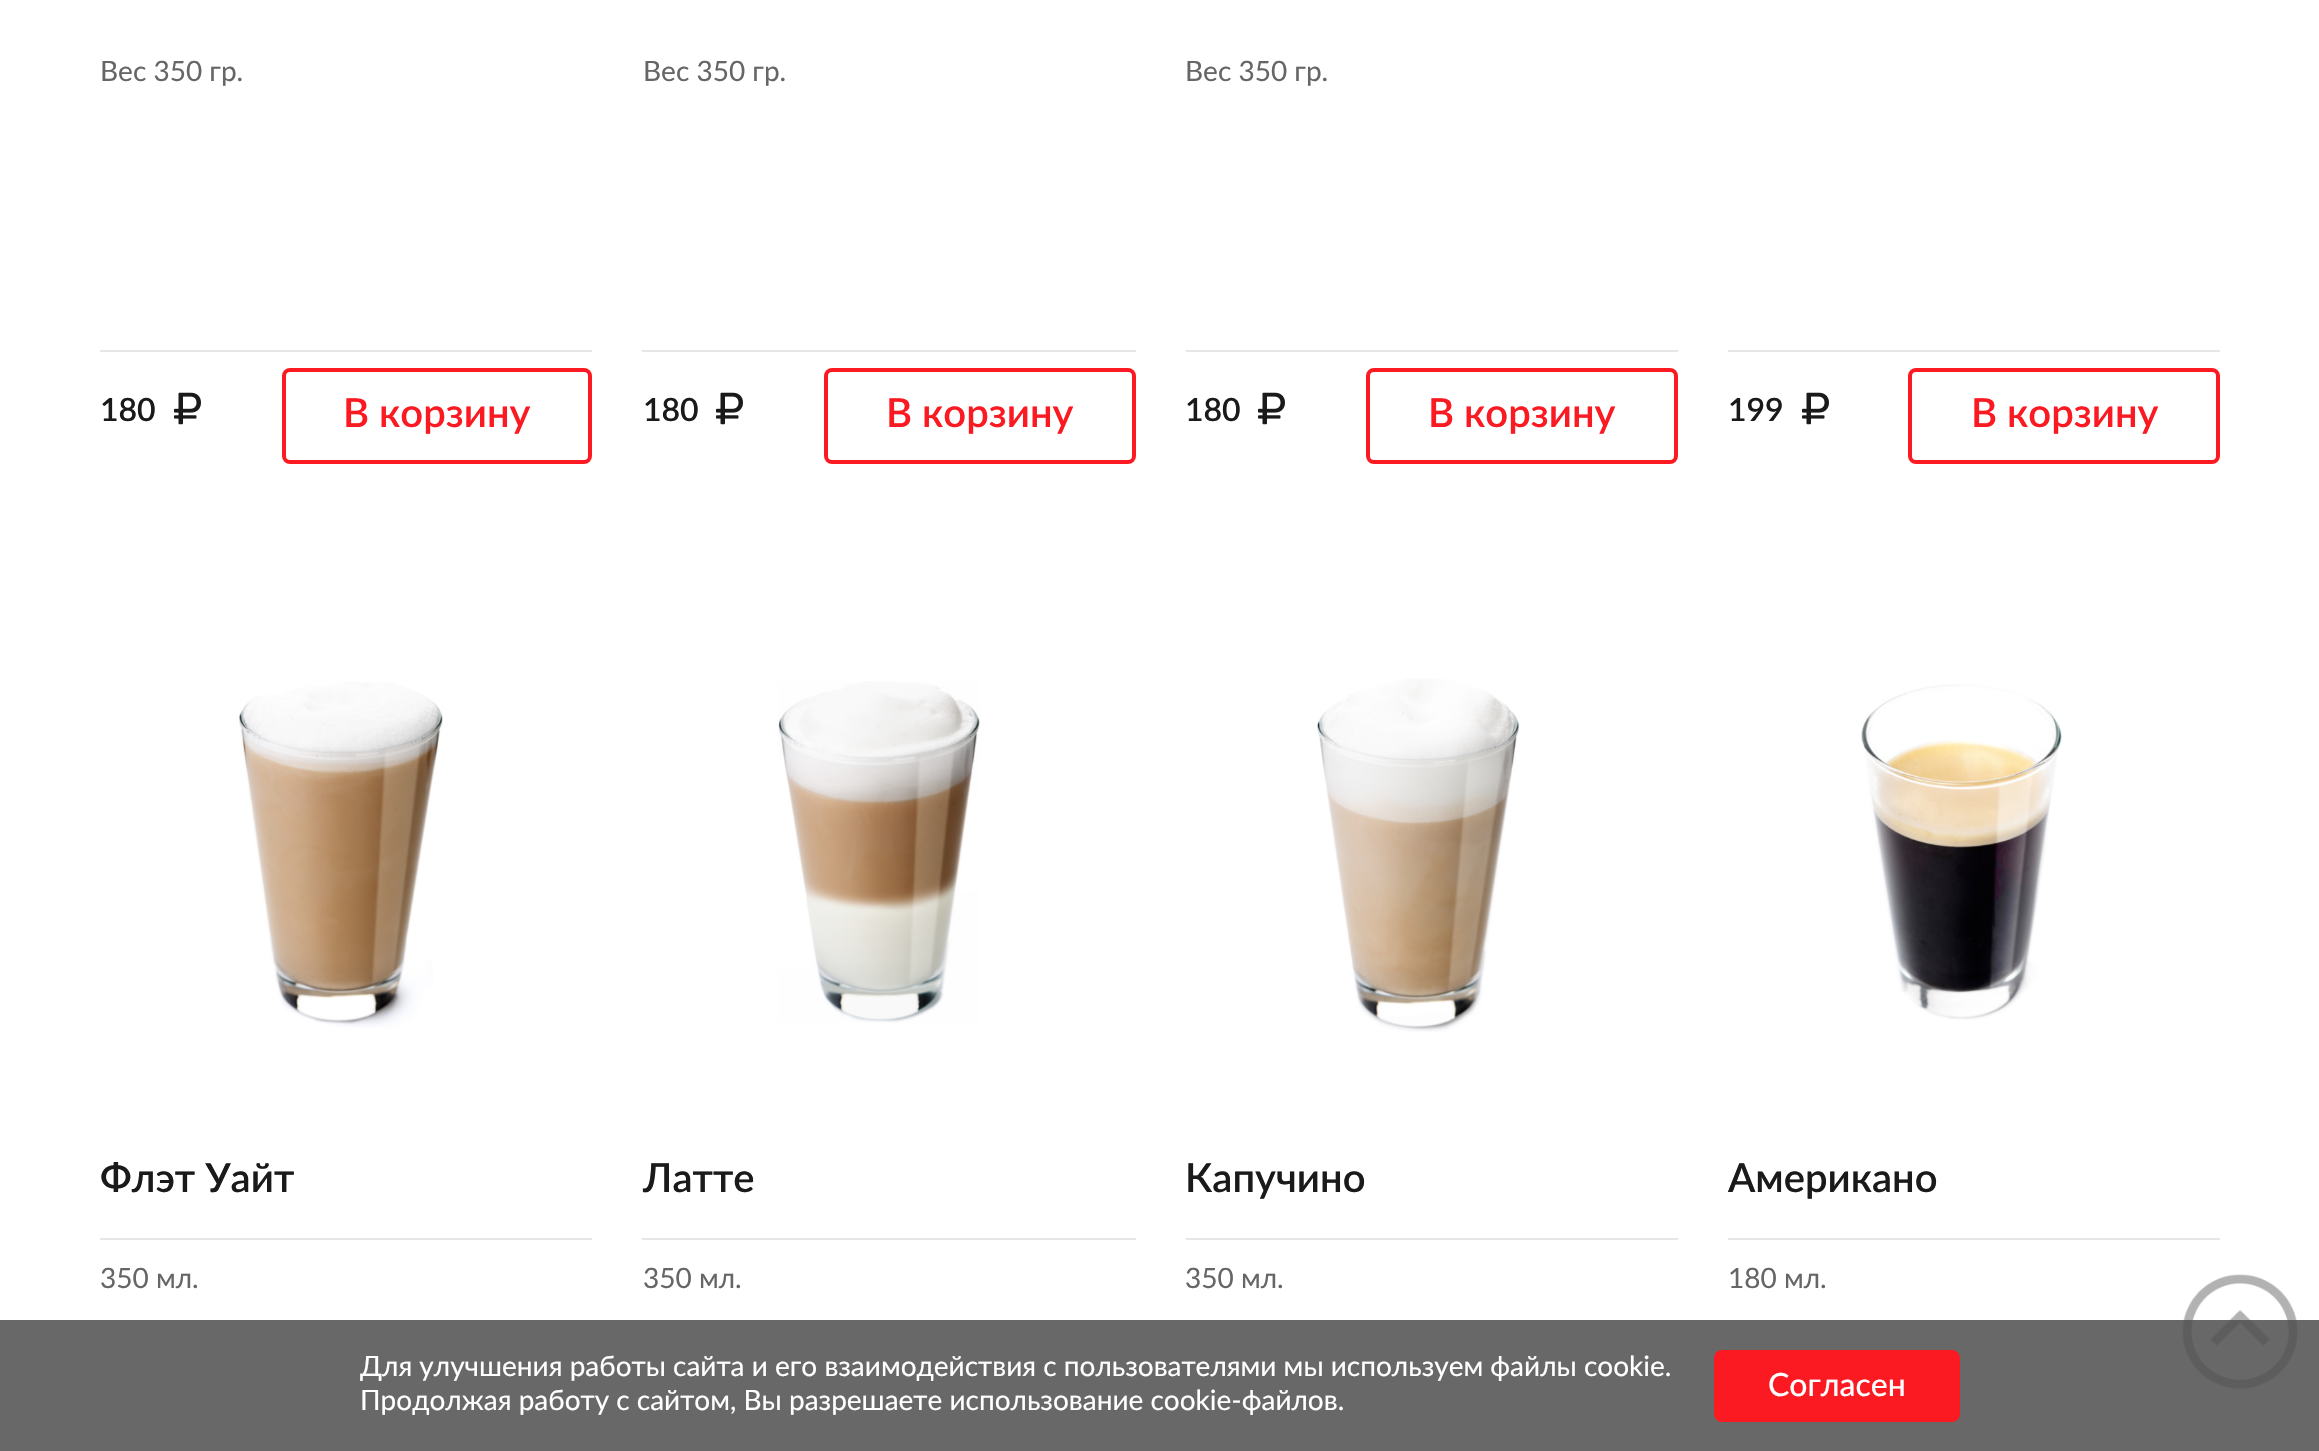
void draw(SkCanvas* canvas) {
    SkPaint paint;
    paint.setAntiAlias(true);
    canvas->clear(0xFFFFFFFF);
    paint.setColor(0xFFE6E6E6);
    canvas->drawRect(SkRect::MakeXYWH(100, 350, 492, 2), paint);
    SkFont font1(fontMgr->matchFamilyStyle("Lato", SkFontStyle::Normal()), 28);
    font1.setSubpixel(true);
    paint.setColor(0xFF666666);
    canvas->drawString("Вес 350 гр.", 100, 81, font1, paint);
    SkFont font2(fontMgr->matchFamilyStyle("Lato", SkFontStyle(600, SkFontStyle::kNormal_Width, SkFontStyle::kUpright_Slant)), 32);
    font2.setSubpixel(true);
    paint.setColor(0xFF1A1A1A);
    canvas->drawString("180", 100, 421, font2, paint);
    canvas->drawImageRect(SkImages::DeferredFromEncodedData(SkData::MakeFromFileName("img1.png")), SkRect::MakeXYWH(174, 392, 27, 33), SkSamplingOptions());
    paint.setStyle(SkPaint::kStroke_Style);
    paint.setStrokeWidth(4);
    paint.setColor(0xFFFB1A22);
    canvas->drawRoundRect(SkRect::MakeXYWH(284, 370, 306, 92), 6, 6, paint);
    SkFont font3(fontMgr->matchFamilyStyle("Lato", SkFontStyle(600, SkFontStyle::kNormal_Width, SkFontStyle::kUpright_Slant)), 40);
    font3.setSubpixel(true);
    paint.setStyle(SkPaint::kFill_Style);
    canvas->drawString("В корзину", 343, 427, font3, paint);
    paint.setColor(0xFFE6E6E6);
    canvas->drawRect(SkRect::MakeXYWH(642, 350, 494, 2), paint);
    paint.setColor(0xFF666666);
    canvas->drawString("Вес 350 гр.", 643, 81, font1, paint);
    paint.setColor(0xFF1A1A1A);
    canvas->drawString("180", 643, 421, font2, paint);
    canvas->drawImageRect(SkImages::DeferredFromEncodedData(SkData::MakeFromFileName("img1.png")), SkRect::MakeXYWH(716, 392, 27, 33), SkSamplingOptions());
    paint.setStyle(SkPaint::kStroke_Style);
    paint.setColor(0xFFFB1A22);
    canvas->drawRoundRect(SkRect::MakeXYWH(826, 370, 308, 92), 6, 6, paint);
    paint.setStyle(SkPaint::kFill_Style);
    canvas->drawString("В корзину", 886, 427, font3, paint);
    paint.setColor(0xFFE6E6E6);
    canvas->drawRect(SkRect::MakeXYWH(1186, 350, 492, 2), paint);
    paint.setColor(0xFF666666);
    canvas->drawString("Вес 350 гр.", 1185, 81, font1, paint);
    paint.setColor(0xFF1A1A1A);
    canvas->drawString("180", 1185, 421, font2, paint);
    canvas->drawImageRect(SkImages::DeferredFromEncodedData(SkData::MakeFromFileName("img1.png")), SkRect::MakeXYWH(1258, 392, 27, 33), SkSamplingOptions());
    paint.setStyle(SkPaint::kStroke_Style);
    paint.setColor(0xFFFB1A22);
    canvas->drawRoundRect(SkRect::MakeXYWH(1368, 370, 308, 92), 6, 6, paint);
    paint.setStyle(SkPaint::kFill_Style);
    canvas->drawString("В корзину", 1428, 427, font3, paint);
    paint.setColor(0xFFE6E6E6);
    canvas->drawRect(SkRect::MakeXYWH(1728, 350, 492, 2), paint);
    paint.setColor(0xFF1A1A1A);
    canvas->drawString("199", 1728, 421, font2, paint);
    canvas->drawImageRect(SkImages::DeferredFromEncodedData(SkData::MakeFromFileName("img1.png")), SkRect::MakeXYWH(1802, 392, 27, 33), SkSamplingOptions());
    paint.setStyle(SkPaint::kStroke_Style);
    paint.setColor(0xFFFB1A22);
    canvas->drawRoundRect(SkRect::MakeXYWH(1910, 370, 308, 92), 6, 6, paint);
    paint.setStyle(SkPaint::kFill_Style);
    canvas->drawString("В корзину", 1971, 427, font3, paint);
    canvas->drawImageRect(SkImages::DeferredFromEncodedData(SkData::MakeFromFileName("img2.png")), SkRect::MakeXYWH(239, 682, 204, 346), SkSamplingOptions());
    paint.setColor(0xFF1A1A1A);
    canvas->drawString("Флэт Уайт", 100, 1192, font3, paint);
    paint.setColor(0xFFE6E6E6);
    canvas->drawRect(SkRect::MakeXYWH(100, 1238, 492, 2), paint);
    paint.setColor(0xFF666666);
    canvas->drawString("350 мл.", 100, 1288, font1, paint);
    canvas->drawImageRect(SkImages::DeferredFromEncodedData(SkData::MakeFromFileName("img3.png")), SkRect::MakeXYWH(778, 681, 202, 342), SkSamplingOptions());
    paint.setColor(0xFF1A1A1A);
    canvas->drawString("Латте", 643, 1192, font3, paint);
    paint.setColor(0xFFE6E6E6);
    canvas->drawRect(SkRect::MakeXYWH(642, 1238, 494, 2), paint);
    paint.setColor(0xFF666666);
    canvas->drawString("350 мл.", 643, 1288, font1, paint);
    canvas->drawImageRect(SkImages::DeferredFromEncodedData(SkData::MakeFromFileName("img4.png")), SkRect::MakeXYWH(1317, 678, 203, 354), SkSamplingOptions());
    paint.setColor(0xFF1A1A1A);
    canvas->drawString("Капучино", 1185, 1192, font3, paint);
    paint.setColor(0xFFE6E6E6);
    canvas->drawRect(SkRect::MakeXYWH(1186, 1238, 492, 2), paint);
    paint.setColor(0xFF666666);
    canvas->drawString("350 мл.", 1185, 1288, font1, paint);
    canvas->drawImageRect(SkImages::DeferredFromEncodedData(SkData::MakeFromFileName("img5.png")), SkRect::MakeXYWH(1861, 684, 201, 336), SkSamplingOptions());
    paint.setColor(0xFF1A1A1A);
    canvas->drawString("Американо", 1728, 1192, font3, paint);
    paint.setColor(0xFFE6E6E6);
    canvas->drawRect(SkRect::MakeXYWH(1728, 1238, 492, 2), paint);
    paint.setColor(0xFF666666);
    canvas->drawString("180 мл.", 1728, 1288, font1, paint);
    canvas->drawImageRect(SkImages::DeferredFromEncodedData(SkData::MakeFromFileName("img6.png")), SkRect::MakeXYWH(2182, 1274, 116, 115), SkSamplingOptions());
    paint.setColor(0xD94D4D4D);
    canvas->drawRect(SkRect::MakeXYWH(0, 1320, 2319, 131), paint);
    paint.setColor(0xFFFFFFFF);
    canvas->drawString("Для улучшения работы сайта и его взаимодействия с пользователями мы используем файлы cookie.", 360, 1376, font1, paint);
    canvas->drawString("Продолжая работу с сайтом, Вы разрешаете использование cookie-файлов.", 360, 1410, font1, paint);
    paint.setColor(0xFFFB1A22);
    canvas->drawRoundRect(SkRect::MakeXYWH(1716, 1352, 242, 68), 6, 6, paint);
    paint.setStyle(SkPaint::kStroke_Style);
    canvas->drawRoundRect(SkRect::MakeXYWH(1716, 1352, 242, 68), 6, 6, paint);
    SkFont font4(fontMgr->matchFamilyStyle("Lato", SkFontStyle(500, SkFontStyle::kNormal_Width, SkFontStyle::kUpright_Slant)), 32);
    font4.setSubpixel(true);
    paint.setStyle(SkPaint::kFill_Style);
    paint.setColor(0xFFFFFFFF);
    canvas->drawString("Согласен", 1768, 1396, font4, paint);
}
